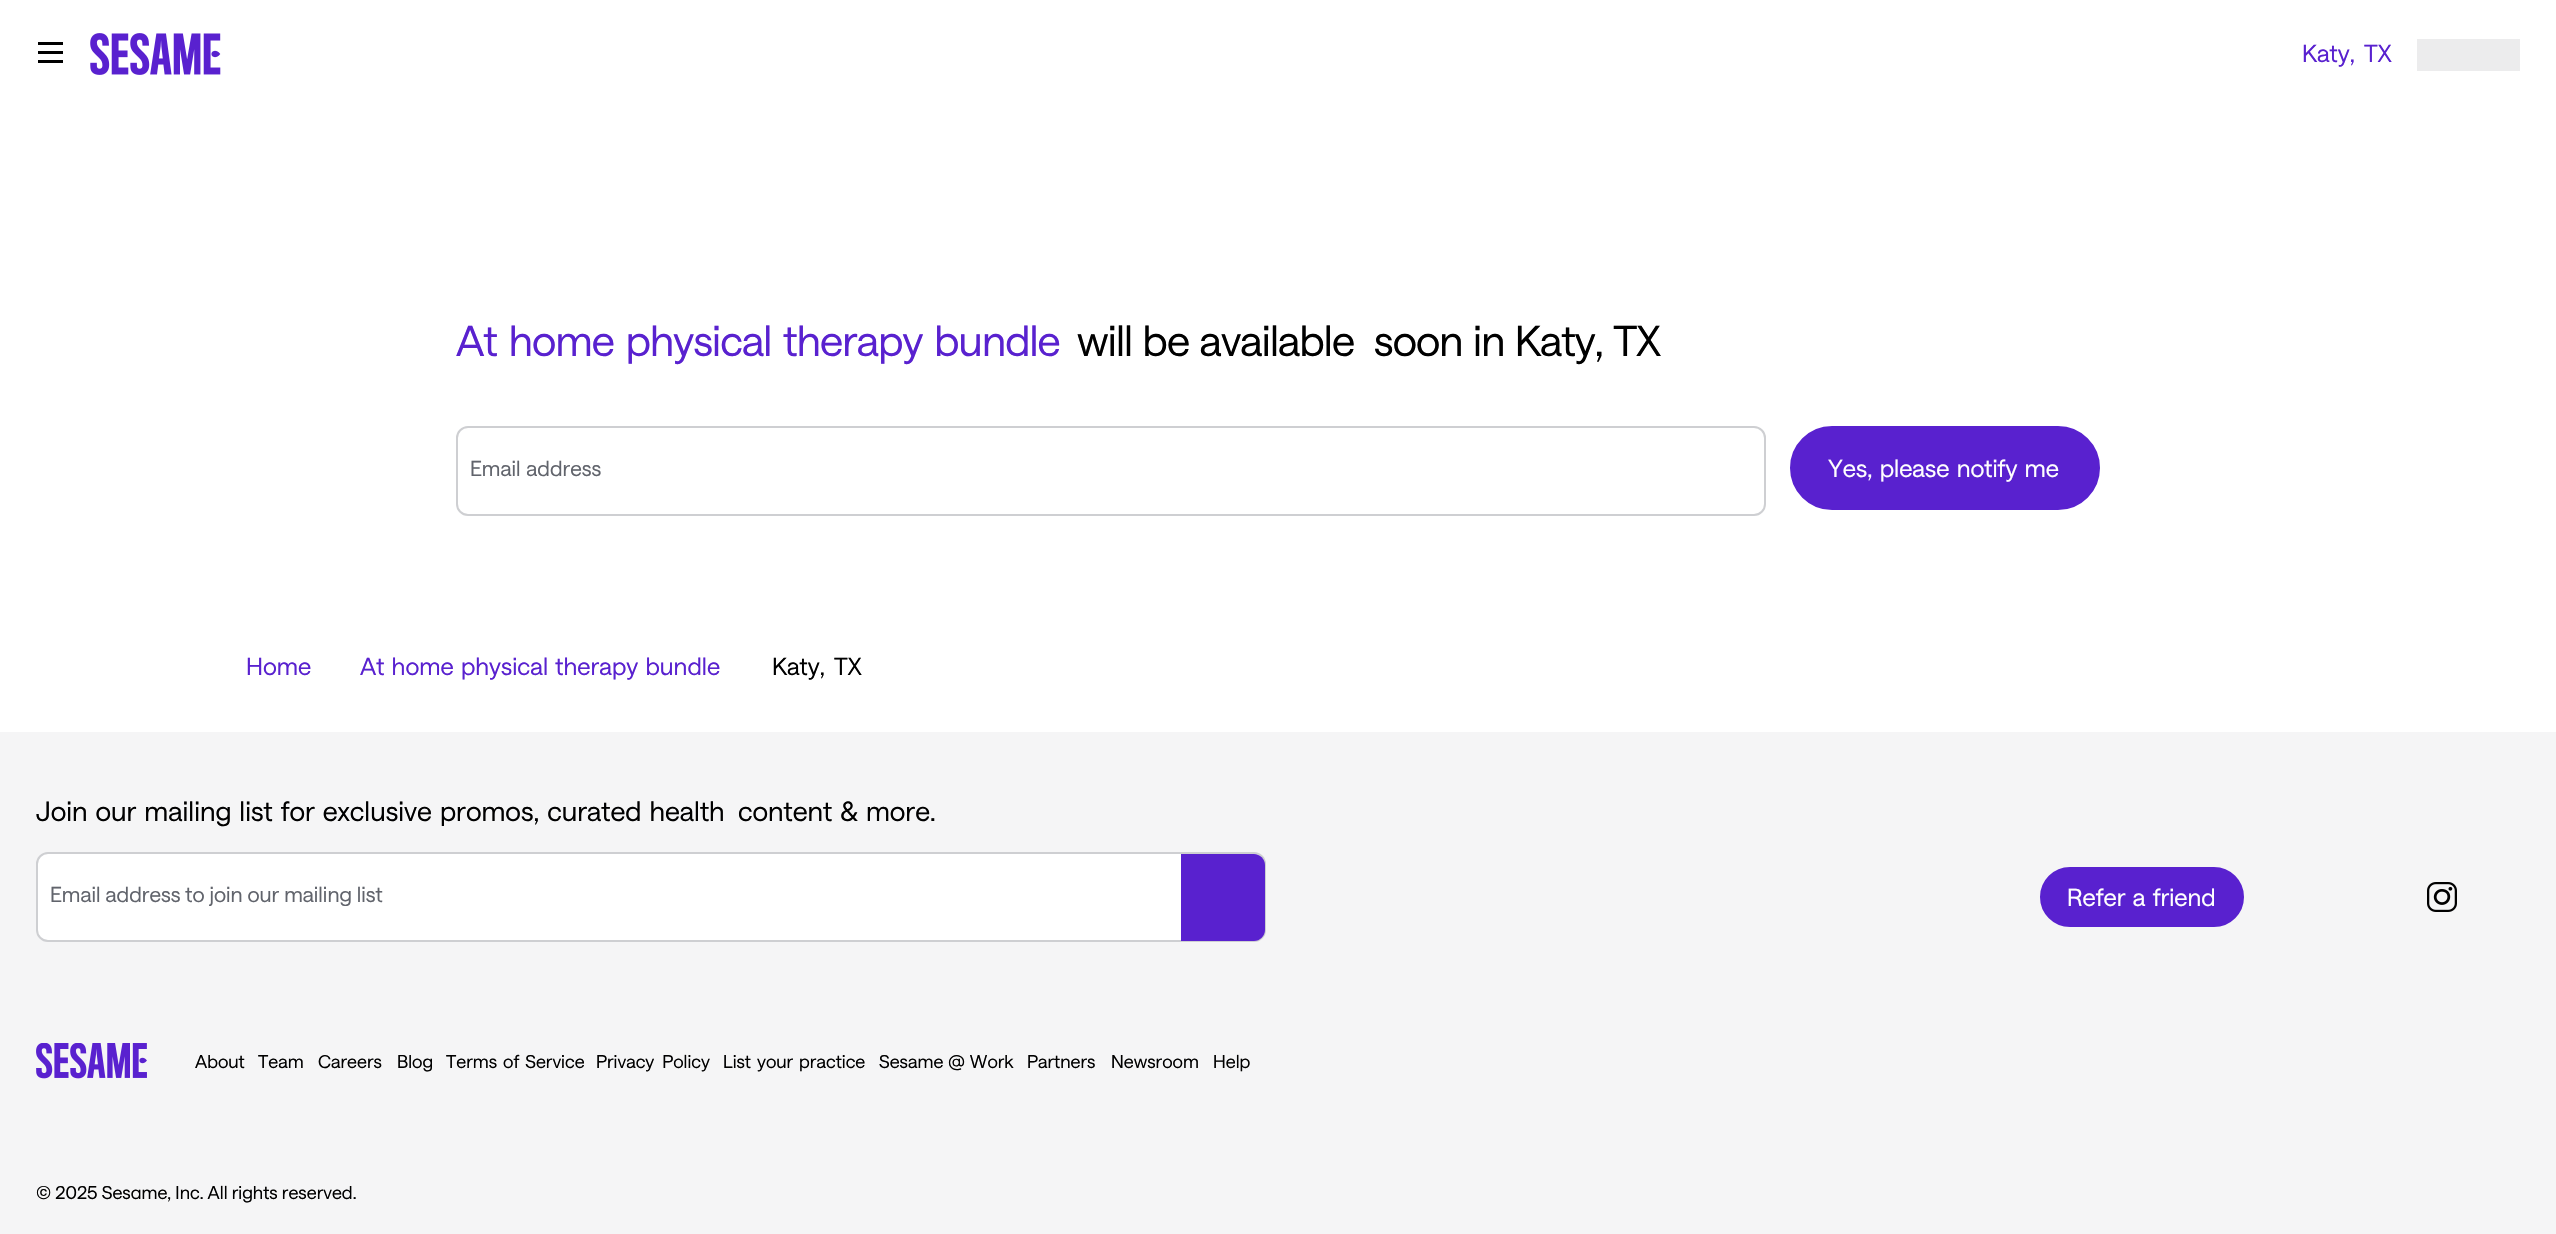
void draw(SkCanvas* canvas) {
    SkPaint paint;
    paint.setAntiAlias(true);
    auto spacedText = [&](const char* s, float x, float y, const SkFont& font, const SkPaint& ink, float letter, float word) {
        std::vector<SkGlyphID> glyphs(font.countText(s, strlen(s), SkTextEncoding::kUTF8));
        std::vector<float> xs(glyphs.size());
        font.textToGlyphs(s, strlen(s), SkTextEncoding::kUTF8, glyphs);
        font.getXPos(glyphs, xs, x);
        float extra = 0;
        for (size_t i = 0; i < glyphs.size(); i++) {
            xs[i] += extra;
            extra += letter + word * (glyphs[i] == font.unicharToGlyph(' '));
        }
        canvas->drawTextBlob(SkTextBlob::MakeFromPosHGlyphs(glyphs, xs, y, font), 0, 0, ink);
    };
    canvas->clear(0xFFFFFFFF);
    paint.setColor(0xFF000000);
    canvas->drawRect(SkRect::MakeXYWH(38, 42, 25, 3), paint);
    canvas->drawRect(SkRect::MakeXYWH(38, 51, 25, 3), paint);
    canvas->drawRect(SkRect::MakeXYWH(38, 60, 25, 3), paint);
    canvas->drawImageRect(SkImages::DeferredFromEncodedData(SkData::MakeFromFileName("img1.png")), SkRect::MakeXYWH(90, 33, 131, 42), SkSamplingOptions());
    SkFont font1(fontMgr->matchFamilyStyle("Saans", SkFontStyle::Normal()), 24);
    font1.setSubpixel(true);
    paint.setColor(0xFF5921CF);
    spacedText("Katy, TX", 2302, 62, font1, paint, 0, 4);
    paint.setColor(0xFFECECED);
    canvas->drawRect(SkRect::MakeXYWH(2417, 39, 103, 32), paint);
    SkFont font2(fontMgr->matchFamilyStyle("Saans", SkFontStyle::Normal()), 42);
    font2.setSubpixel(true);
    paint.setColor(0xFF5921CF);
    spacedText("At home physical therapy bundle", 456, 356, font2, paint, -0.85f, 3.5f);
    paint.setColor(0xFF000000);
    spacedText("will be available", 1077, 356, font2, paint, -0.85f, 2);
    spacedText("soon in Katy, TX", 1374, 356, font2, paint, -0.85f, 2);
    paint.setStyle(SkPaint::kStroke_Style);
    paint.setStrokeWidth(2);
    paint.setColor(0xFFCECFD2);
    canvas->drawRoundRect(SkRect::MakeXYWH(457, 427, 1308, 88), 11, 11, paint);
    SkFont font3(fontMgr->matchFamilyStyle("Saans", SkFontStyle::Normal()), 21);
    font3.setSubpixel(true);
    paint.setStyle(SkPaint::kFill_Style);
    paint.setColor(0xFF61646C);
    spacedText("Email address", 470, 476, font3, paint, 0, 1);
    paint.setColor(0xFF5921CF);
    canvas->drawRoundRect(SkRect::MakeXYWH(1791.5f, 427.5f, 307, 81), 40.5f, 40.5f, paint);
    paint.setStyle(SkPaint::kStroke_Style);
    paint.setStrokeWidth(3);
    canvas->drawRoundRect(SkRect::MakeXYWH(1791.5f, 427.5f, 307, 81), 40.5f, 40.5f, paint);
    paint.setStyle(SkPaint::kFill_Style);
    paint.setColor(0xFFFFFFFF);
    spacedText("Yes, please notify me", 1828, 477, font1, paint, 0, 2);
    paint.setColor(0xFF5921CF);
    canvas->drawString("Home", 246, 675, font1, paint);
    spacedText("At home physical therapy bundle", 360, 675, font1, paint, 0, 2);
    paint.setColor(0xFF000000);
    spacedText("Katy, TX", 772, 675, font1, paint, 0, 4);
    paint.setColor(0xFFF5F5F6);
    canvas->drawRect(SkRect::MakeXYWH(0, 732, 2556, 502), paint);
    SkFont font4(fontMgr->matchFamilyStyle("Saans", SkFontStyle::Normal()), 27);
    font4.setSubpixel(true);
    paint.setColor(0xFF000000);
    spacedText("Join our mailing list for exclusive promos, curated health", 36, 821, font4, paint, 0, 2);
    spacedText("content & more.", 738, 821, font4, paint, 0, 2);
    paint.setColor(0xFFFFFFFF);
    canvas->drawRoundRect(SkRect::MakeXYWH(37, 853, 1228, 88), 11, 11, paint);
    paint.setStyle(SkPaint::kStroke_Style);
    paint.setStrokeWidth(2);
    paint.setColor(0xFFCECFD2);
    canvas->drawRoundRect(SkRect::MakeXYWH(37, 853, 1228, 88), 11, 11, paint);
    paint.setStyle(SkPaint::kFill_Style);
    paint.setColor(0xFF61646C);
    spacedText("Email address to join our mailing list", 50, 902, font3, paint, 0, 0.25f);
    paint.setColor(0xFF5921CF);
    canvas->drawPath(SkPathBuilder().moveTo(1181, 854).lineTo(1254, 854).cubicTo(1260, 854, 1265, 859, 1265, 865).lineTo(1265, 930).cubicTo(1265, 936, 1260, 941, 1254, 941).lineTo(1181, 941).close().detach(), paint);
    canvas->drawRoundRect(SkRect::MakeXYWH(2041.5f, 868.5f, 201, 57), 28.5f, 28.5f, paint);
    paint.setStyle(SkPaint::kStroke_Style);
    paint.setStrokeWidth(3);
    canvas->drawRoundRect(SkRect::MakeXYWH(2041.5f, 868.5f, 201, 57), 28.5f, 28.5f, paint);
    paint.setStyle(SkPaint::kFill_Style);
    paint.setColor(0xFFFFFFFF);
    spacedText("Refer a friend", 2067, 906, font1, paint, 0, 2);
    canvas->drawImageRect(SkImages::DeferredFromEncodedData(SkData::MakeFromFileName("img2.png")), SkRect::MakeXYWH(2427, 882, 30, 30), SkSamplingOptions());
    canvas->drawImageRect(SkImages::DeferredFromEncodedData(SkData::MakeFromFileName("img3.png")), SkRect::MakeXYWH(36, 1043, 111, 36), SkSamplingOptions());
    SkFont font5(fontMgr->matchFamilyStyle("Saans", SkFontStyle::Normal()), 18);
    font5.setSubpixel(true);
    paint.setColor(0xFF000000);
    canvas->drawString("About", 195, 1068, font5, paint);
    canvas->drawString("Team", 258, 1068, font5, paint);
    canvas->drawString("Careers", 318, 1068, font5, paint);
    canvas->drawString("Blog", 397, 1068, font5, paint);
    spacedText("Terms of Service", 446, 1068, font5, paint, 0, 2);
    spacedText("Privacy Policy", 596, 1068, font5, paint, 0, 4);
    spacedText("List your practice", 723, 1068, font5, paint, 0, 2);
    spacedText("Sesame @ Work", 879, 1068, font5, paint, 0, 1);
    canvas->drawString("Partners", 1027, 1068, font5, paint);
    canvas->drawString("Newsroom", 1111, 1068, font5, paint);
    canvas->drawString("Help", 1213, 1068, font5, paint);
    SkFont font6(fontMgr->matchFamilyStyle("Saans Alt", SkFontStyle::Normal()), 18);
    font6.setSubpixel(true);
    spacedText("© 2025 Sesame, Inc. All rights reserved.", 36, 1199, font6, paint, 0, 0.25f);
}
